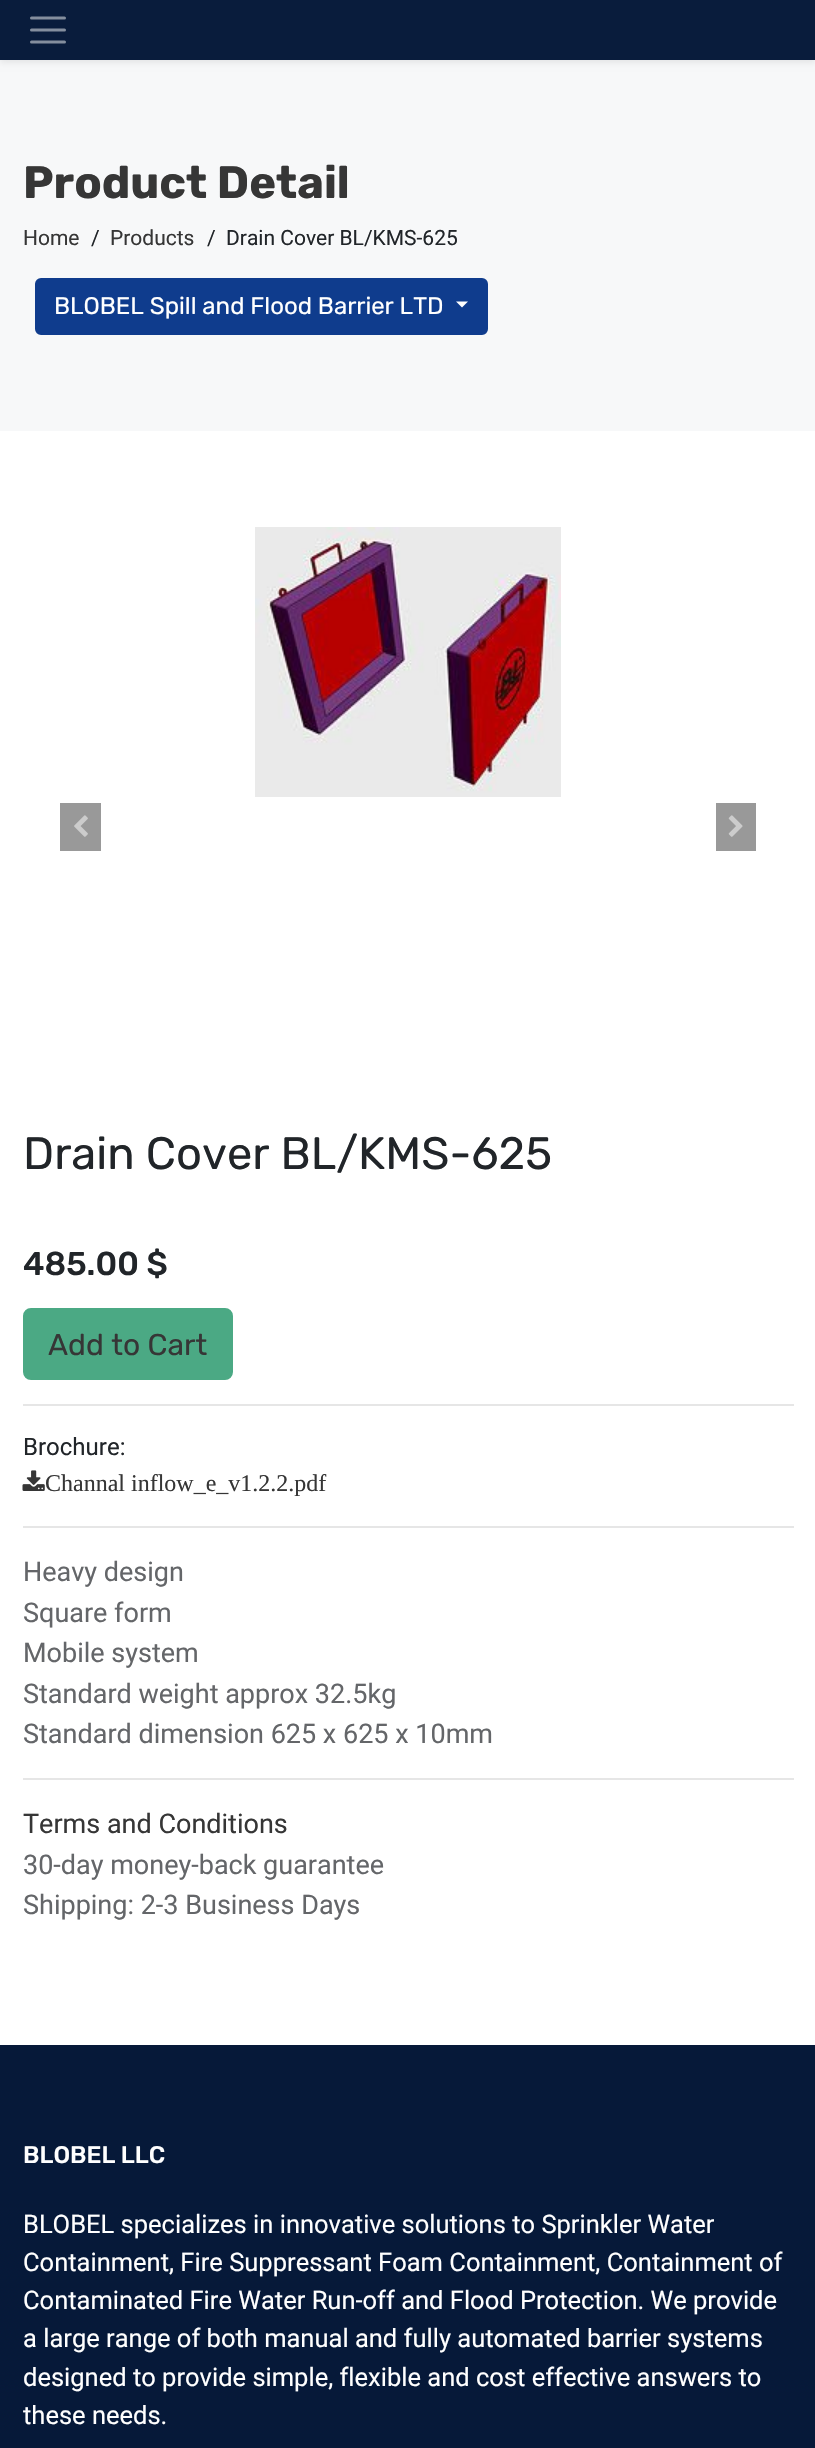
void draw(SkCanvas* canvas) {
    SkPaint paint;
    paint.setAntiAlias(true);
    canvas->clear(0xFFFFFFFF);
    paint.setColor(0xFFF7F8F9);
    canvas->drawRect(SkRect::MakeXYWH(0, 60, 815, 371), paint);
    paint.setColor(0x12000000);
    paint.setMaskFilter(SkMaskFilter::MakeBlur(kNormal_SkBlurStyle, 3));
    canvas->drawRect(SkRect::MakeXYWH(0, 3, 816, 60), paint);
    paint.setMaskFilter(nullptr);
    paint.setColor(0xFF091C3C);
    canvas->drawRect(SkRect::MakeXYWH(0, 0, 815, 60), paint);
    paint.setStyle(SkPaint::kStroke_Style);
    paint.setStrokeWidth(3);
    paint.setStrokeCap(SkPaint::kRound_Cap);
    paint.setColor(0xFF848E9E);
    canvas->drawPath(SkPathBuilder().moveTo(31.5f, 18).lineTo(64.5f, 18).moveTo(31.5f, 30).lineTo(64.5f, 30).moveTo(31.5f, 42).lineTo(64.5f, 42).detach(), paint);
    SkFont font1(fontMgr->matchFamilyStyle("Rubik", SkFontStyle::Bold()), 45.25f);
    font1.setSubpixel(true);
    paint.setStyle(SkPaint::kFill_Style);
    paint.setColor(0xFF363636);
    canvas->drawString("Product Detail", 23, 198, font1, paint);
    SkFont font2(fontMgr->matchFamilyStyle("Roboto", SkFontStyle::Normal()), 21);
    font2.setSubpixel(true);
    canvas->drawString("Home", 23, 245, font2, paint);
    paint.setColor(0xFF212529);
    canvas->drawString("/", 91, 245, font2, paint);
    paint.setColor(0xFF363636);
    canvas->drawString("Products", 110, 245, font2, paint);
    paint.setColor(0xFF212529);
    canvas->drawString("/", 207, 245, font2, paint);
    canvas->drawString("Drain Cover BL/KMS-625", 226, 245, font2, paint);
    paint.setColor(0xFF0F3C8D);
    canvas->drawRoundRect(SkRect::MakeXYWH(36, 279, 451, 55), 5, 5, paint);
    paint.setStyle(SkPaint::kStroke_Style);
    paint.setStrokeWidth(2);
    paint.setStrokeCap(SkPaint::kButt_Cap);
    canvas->drawRoundRect(SkRect::MakeXYWH(36, 279, 451, 55), 5, 5, paint);
    SkFont font3(fontMgr->matchFamilyStyle("Rubik", SkFontStyle::Normal()), 24);
    font3.setSubpixel(true);
    paint.setStyle(SkPaint::kFill_Style);
    paint.setColor(0xFFFFFFFF);
    canvas->drawString("BLOBEL Spill and Flood Barrier LTD", 54, 314, font3, paint);
    canvas->drawPath(SkPathBuilder().moveTo(456, 301.5f).lineTo(468, 301.5f).lineTo(462, 307.5f).close().detach(), paint);
    canvas->drawImageRect(SkImages::DeferredFromEncodedData(SkData::MakeFromFileName("img1.png")), SkRect::MakeXYWH(255, 527, 306, 270), SkSamplingOptions());
    paint.setColor(0xFF999999);
    canvas->drawRect(SkRect::MakeXYWH(60, 803, 41, 48), paint);
    canvas->drawImageRect(SkImages::DeferredFromEncodedData(SkData::MakeFromFileName("img2.png")), SkRect::MakeXYWH(74, 815, 14, 22), SkSamplingOptions());
    canvas->drawRect(SkRect::MakeXYWH(716, 803, 40, 48), paint);
    canvas->drawImageRect(SkImages::DeferredFromEncodedData(SkData::MakeFromFileName("img3.png")), SkRect::MakeXYWH(728, 815, 15, 22), SkSamplingOptions());
    SkFont font4(fontMgr->matchFamilyStyle("Rubik", SkFontStyle::Normal()), 45.25f);
    font4.setSubpixel(true);
    paint.setColor(0xFF212529);
    canvas->drawString("Drain Cover BL/KMS-625", 23, 1169, font4, paint);
    SkFont font5(fontMgr->matchFamilyStyle("Rubik", SkFontStyle(500, SkFontStyle::kNormal_Width, SkFontStyle::kUpright_Slant)), 33);
    font5.setSubpixel(true);
    canvas->drawString("485.00 $", 23, 1275, font5, paint);
    paint.setColor(0xFF4BA984);
    canvas->drawRoundRect(SkRect::MakeXYWH(24, 1309, 208, 70), 7, 7, paint);
    paint.setStyle(SkPaint::kStroke_Style);
    canvas->drawRoundRect(SkRect::MakeXYWH(24, 1309, 208, 70), 7, 7, paint);
    SkFont font6(fontMgr->matchFamilyStyle("Rubik", SkFontStyle::Normal()), 30);
    font6.setSubpixel(true);
    paint.setStyle(SkPaint::kFill_Style);
    paint.setColor(0xFF363636);
    canvas->drawString("Add to Cart", 48, 1355, font6, paint);
    paint.setColor(0xFFE6E6E6);
    canvas->drawRect(SkRect::MakeXYWH(23, 1404, 771, 2), paint);
    SkFont font7(fontMgr->matchFamilyStyle("Roboto", SkFontStyle::Normal()), 24);
    font7.setSubpixel(true);
    paint.setColor(0xFF212529);
    canvas->drawString("Brochure:", 23, 1455, font7, paint);
    canvas->drawImageRect(SkImages::DeferredFromEncodedData(SkData::MakeFromFileName("img4.png")), SkRect::MakeXYWH(22, 1470, 23, 21), SkSamplingOptions());
    SkFont font8(fontMgr->matchFamilyStyle("Liberation Serif", SkFontStyle::Normal()), 24);
    font8.setSubpixel(true);
    paint.setColor(0xFF363636);
    canvas->drawString("Channal inflow_e_v1.2.2.pdf", 45, 1491, font8, paint);
    paint.setColor(0xFFE6E6E6);
    canvas->drawRect(SkRect::MakeXYWH(23, 1526, 771, 2), paint);
    SkFont font9(fontMgr->matchFamilyStyle("Roboto", SkFontStyle::Normal()), 27);
    font9.setSubpixel(true);
    paint.setColor(0xFF646669);
    canvas->drawString("Heavy design", 23, 1581, font9, paint);
    canvas->drawString("Square form", 23, 1622, font9, paint);
    canvas->drawString("Mobile system", 23, 1662, font9, paint);
    canvas->drawString("Standard weight approx 32.5kg", 23, 1703, font9, paint);
    canvas->drawString("Standard dimension 625 x 625 x 10mm", 23, 1743, font9, paint);
    paint.setColor(0xFFE6E6E6);
    canvas->drawRect(SkRect::MakeXYWH(23, 1778, 771, 2), paint);
    paint.setColor(0xFF363636);
    canvas->drawString("Terms and Conditions", 23, 1833, font9, paint);
    paint.setColor(0xFF646669);
    canvas->drawString("30-day money-back guarantee", 23, 1874, font9, paint);
    canvas->drawString("Shipping: 2-3 Business Days", 23, 1914, font9, paint);
    paint.setColor(0xFF061939);
    canvas->drawRect(SkRect::MakeXYWH(0, 2045, 815, 403), paint);
    SkFont font10(fontMgr->matchFamilyStyle("Rubik", SkFontStyle(500, SkFontStyle::kNormal_Width, SkFontStyle::kUpright_Slant)), 24);
    font10.setSubpixel(true);
    paint.setColor(0xFFFFFFFF);
    canvas->drawString("BLOBEL LLC", 23, 2163, font10, paint);
    SkFont font11(fontMgr->matchFamilyStyle("Roboto", SkFontStyle::Normal()), 25.5f);
    font11.setSubpixel(true);
    canvas->drawString("BLOBEL specializes in innovative solutions to Sprinkler Water", 23, 2233, font11, paint);
    canvas->drawString("Containment, Fire Suppressant Foam Containment, Containment of", 23, 2271, font11, paint);
    canvas->drawString("Contaminated Fire Water Run-off and Flood Protection. We provide", 23, 2309, font11, paint);
    canvas->drawString("a large range of both manual and fully automated barrier systems", 23, 2347, font11, paint);
    canvas->drawString("designed to provide simple, flexible and cost effective answers to", 23, 2386, font11, paint);
    canvas->drawString("these needs.", 23, 2424, font11, paint);
}
